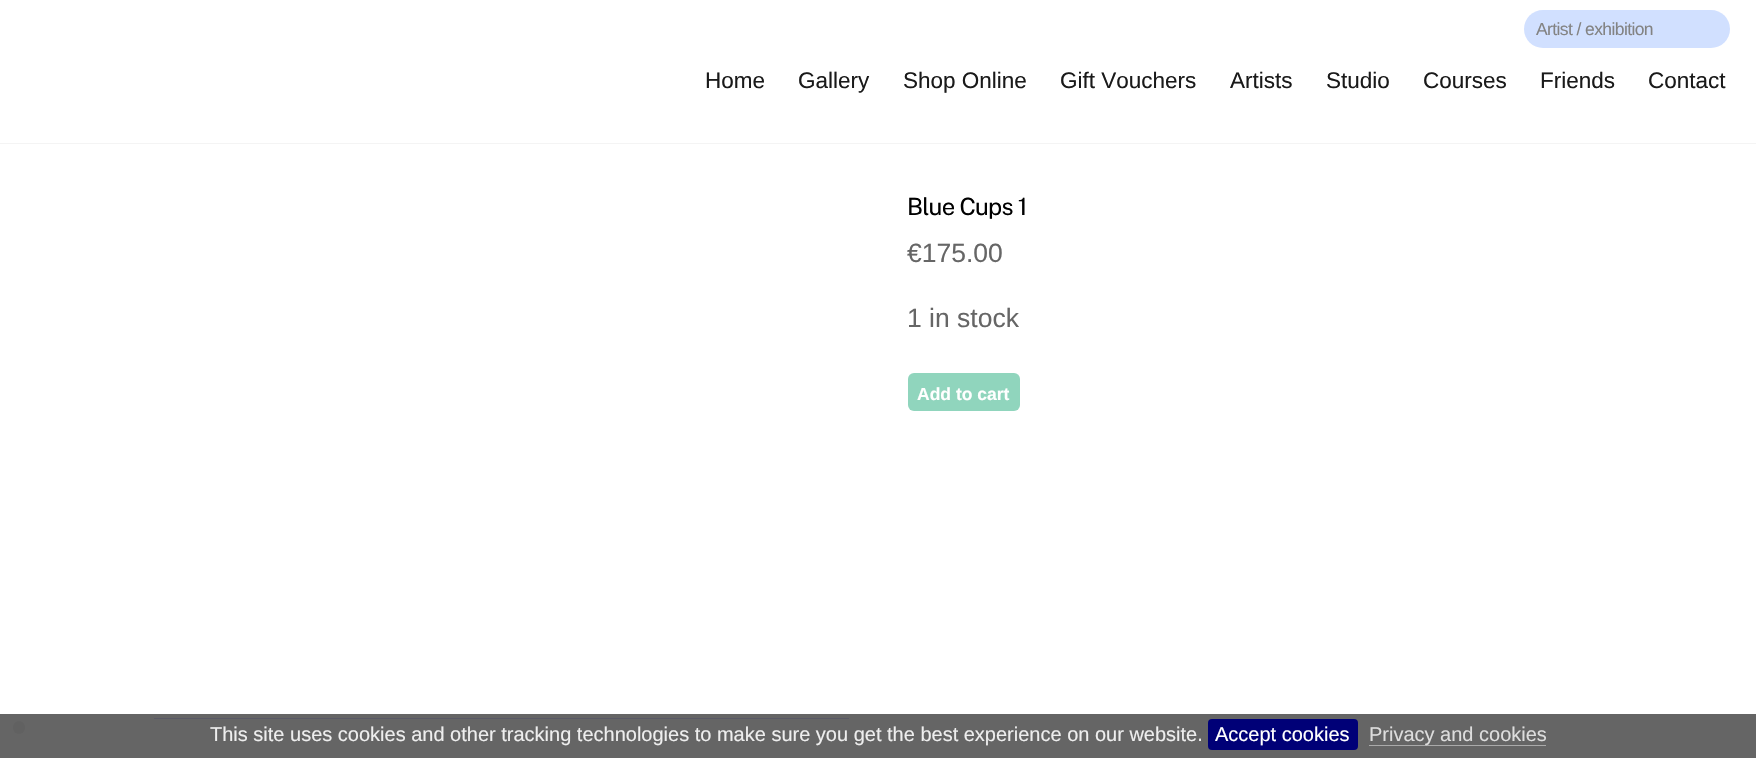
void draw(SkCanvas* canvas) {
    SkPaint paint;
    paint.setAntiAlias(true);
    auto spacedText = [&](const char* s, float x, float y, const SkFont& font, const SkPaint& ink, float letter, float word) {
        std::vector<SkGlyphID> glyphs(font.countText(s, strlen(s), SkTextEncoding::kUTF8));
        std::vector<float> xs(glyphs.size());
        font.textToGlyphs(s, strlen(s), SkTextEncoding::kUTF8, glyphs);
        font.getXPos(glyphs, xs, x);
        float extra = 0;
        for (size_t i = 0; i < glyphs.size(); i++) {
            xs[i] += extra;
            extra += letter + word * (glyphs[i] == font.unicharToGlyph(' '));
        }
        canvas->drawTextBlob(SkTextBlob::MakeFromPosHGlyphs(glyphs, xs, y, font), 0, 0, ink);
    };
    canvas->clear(0xFFFFFFFF);
    paint.setColor(0xFF656565);
    canvas->drawRect(SkRect::MakeXYWH(0, 714, 1756, 44), paint);
    paint.setColor(0xFFF4F4F4);
    canvas->drawRect(SkRect::MakeXYWH(0, 143, 1756, 1), paint);
    paint.setColor(0xFFD1E0FF);
    canvas->drawRoundRect(SkRect::MakeXYWH(1524, 10, 206, 38), 19, 19, paint);
    SkFont font1(fontMgr->matchFamilyStyle("Liberation Sans", SkFontStyle::Normal()), 17.5f);
    font1.setSubpixel(true);
    paint.setColor(0xFF838383);
    spacedText("Artist / exhibition", 1536, 35, font1, paint, -0.6f, 0);
    SkFont font2(fontMgr->matchFamilyStyle("Liberation Sans", SkFontStyle::Normal()), 22.5f);
    font2.setSubpixel(true);
    paint.setColor(0xFF1A1A1A);
    canvas->drawString("Home", 705, 88, font2, paint);
    canvas->drawString("Gallery", 798, 88, font2, paint);
    canvas->drawString("Shop Online", 903, 88, font2, paint);
    canvas->drawString("Gift Vouchers", 1060, 88, font2, paint);
    canvas->drawString("Artists", 1230, 88, font2, paint);
    canvas->drawString("Studio", 1326, 88, font2, paint);
    canvas->drawString("Courses", 1423, 88, font2, paint);
    canvas->drawString("Friends", 1540, 88, font2, paint);
    canvas->drawString("Contact", 1648, 88, font2, paint);
    SkFont font3(fontMgr->matchFamilyStyle("Public Sans", SkFontStyle::Normal()), 23.75f);
    font3.setSubpixel(true);
    paint.setColor(0xFF000000);
    spacedText("Blue Cups 1", 907, 215, font3, paint, -0.75f, 0);
    SkFont font4(fontMgr->matchFamilyStyle("Liberation Sans", SkFontStyle::Normal()), 26.5f);
    font4.setSubpixel(true);
    paint.setColor(0xFF666666);
    canvas->drawString("€175.00", 907, 262, font4, paint);
    canvas->drawString("1 in stock", 907, 327, font4, paint);
    paint.setColor(0xFF90D5BD);
    canvas->drawRoundRect(SkRect::MakeXYWH(908, 373, 112, 38), 6, 6, paint);
    SkFont font5(fontMgr->matchFamilyStyle("Liberation Sans", SkFontStyle::Bold()), 17.5f);
    font5.setSubpixel(true);
    paint.setColor(0xFFFFFFFF);
    canvas->drawString("Add to cart", 917, 400, font5, paint);
    paint.setColor(0xFF595965);
    canvas->drawRect(SkRect::MakeXYWH(154, 718, 695, 1), paint);
    paint.setColor(0xFF616161);
    canvas->drawRoundRect(SkRect::MakeXYWH(13, 721, 12, 13), 6, 6, paint);
    SkFont font6(fontMgr->matchFamilyStyle("Liberation Sans", SkFontStyle::Normal()), 20);
    font6.setSubpixel(true);
    paint.setColor(0xFFEEEEEE);
    canvas->drawString("This site uses cookies and other tracking technologies to make sure you get the best experience on our website.", 210, 741, font6, paint);
    paint.setColor(0xFF000077);
    canvas->drawRoundRect(SkRect::MakeXYWH(1208, 719, 150, 31), 4, 4, paint);
    paint.setColor(0xFFFFFFFF);
    canvas->drawString("Accept cookies", 1215, 741, font6, paint);
    paint.setColor(0xFFAAAAAA);
    canvas->drawRect(SkRect::MakeXYWH(1369, 745, 177, 1), paint);
    paint.setColor(0xFFDDDDDD);
    canvas->drawString("Privacy and cookies", 1369, 741, font6, paint);
}
